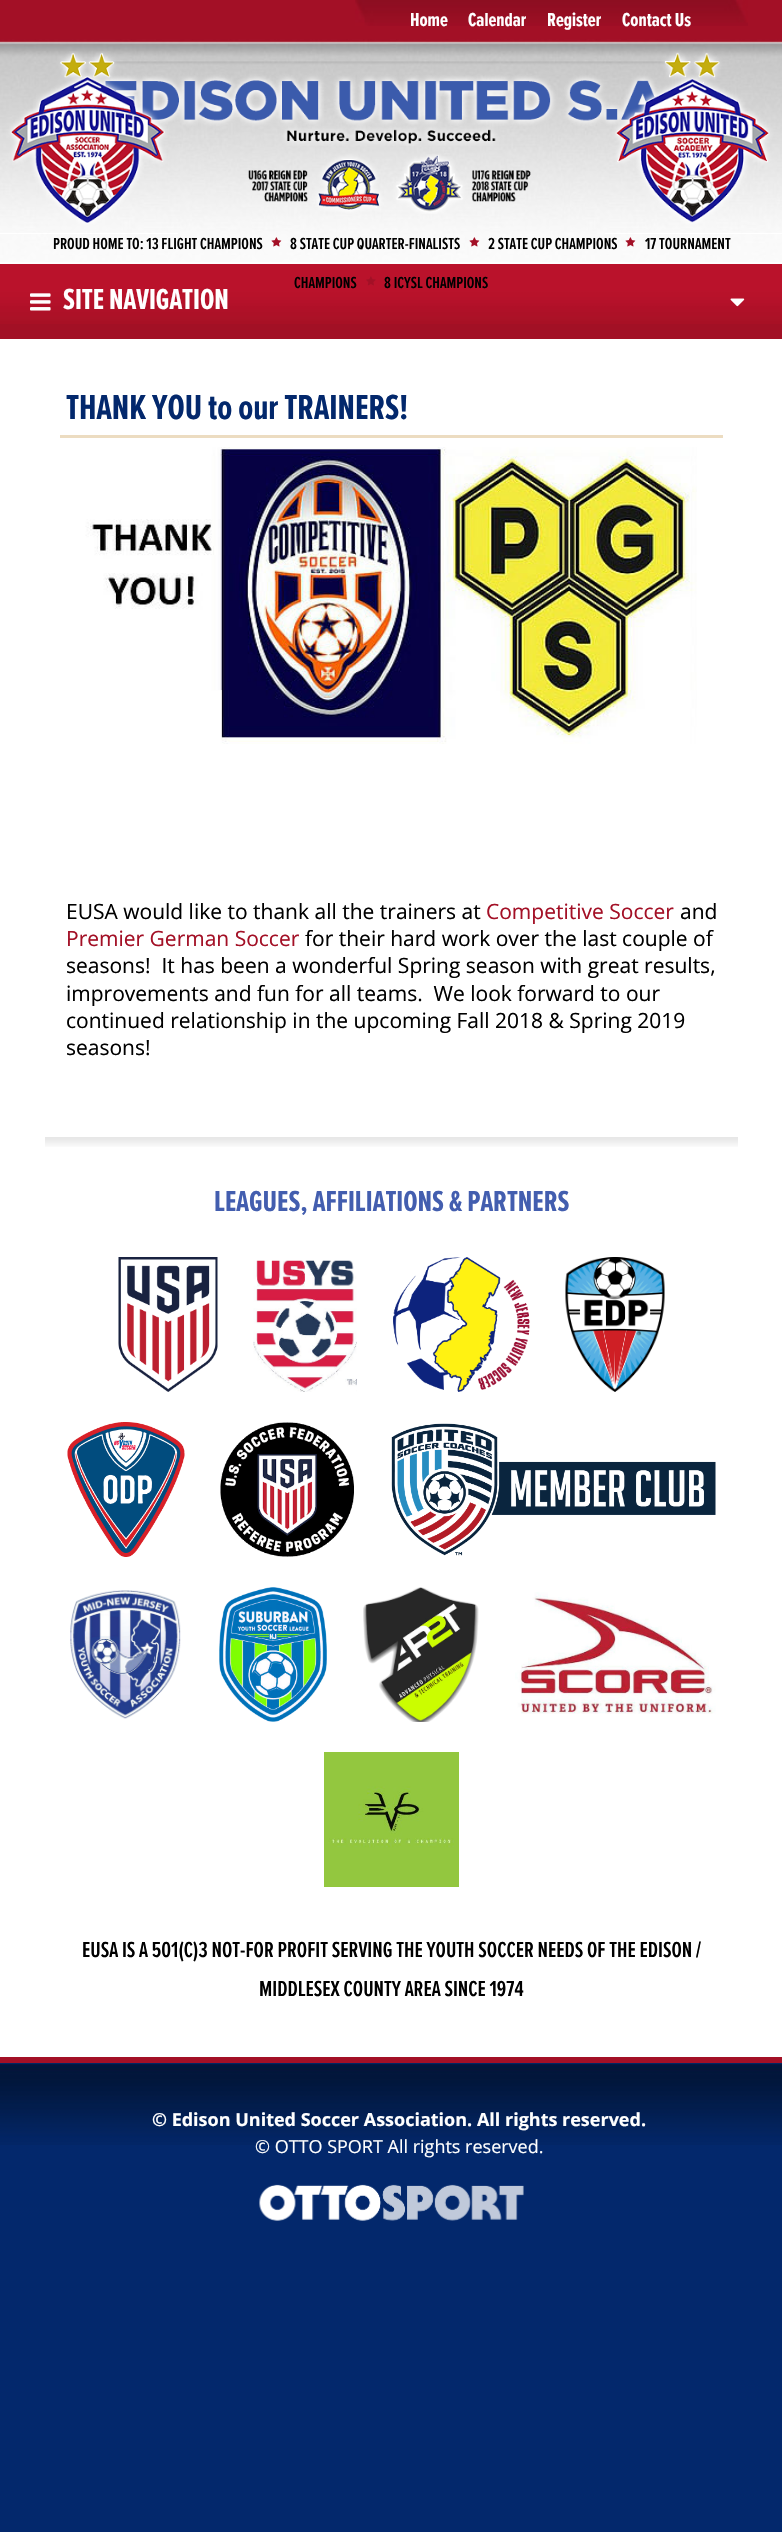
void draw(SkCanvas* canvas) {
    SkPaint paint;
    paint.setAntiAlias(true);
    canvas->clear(0xFF03286C);
    paint.setColor(0xFFA31026);
    canvas->drawRect(SkRect::MakeXYWH(0, 0, 782, 39), paint);
    canvas->drawImageRect(SkImages::DeferredFromEncodedData(SkData::MakeFromFileName("img1.png")), SkRect::MakeXYWH(355, 0, 393, 26), SkSamplingOptions());
    SkFont font1(fontMgr->matchFamilyStyle("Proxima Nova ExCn", SkFontStyle::Bold()), 19.5f);
    font1.setSubpixel(true);
    paint.setColor(0xFFFFFFFF);
    canvas->drawString("Home", 410, 26, font1, paint);
    canvas->drawString("Calendar", 468, 26, font1, paint);
    canvas->drawString("Register", 547, 26, font1, paint);
    canvas->drawString("Contact Us", 622, 26, font1, paint);
    paint.setColor(0xFFFEFEFE);
    canvas->drawRect(SkRect::MakeXYWH(0, 262, 782, 2), paint);
    canvas->drawImageRect(SkImages::DeferredFromEncodedData(SkData::MakeFromFileName("img2.png")), SkRect::MakeXYWH(0, 39, 782, 223), SkSamplingOptions());
    canvas->drawImageRect(SkImages::DeferredFromEncodedData(SkData::MakeFromFileName("img4.png")), SkRect::MakeXYWH(93, 61, 597, 85), SkSamplingOptions());
    canvas->drawImageRect(SkImages::DeferredFromEncodedData(SkData::MakeFromFileName("img3.png")), SkRect::MakeXYWH(0, 51, 178, 183), SkSamplingOptions());
    canvas->drawImageRect(SkImages::DeferredFromEncodedData(SkData::MakeFromFileName("img5.png")), SkRect::MakeXYWH(605, 50, 177, 184), SkSamplingOptions());
    canvas->drawImageRect(SkImages::DeferredFromEncodedData(SkData::MakeFromFileName("img6.png")), SkRect::MakeXYWH(248, 154, 283, 60), SkSamplingOptions());
    SkFont font2(fontMgr->matchFamilyStyle("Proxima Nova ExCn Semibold", SkFontStyle(600, SkFontStyle::kNormal_Width, SkFontStyle::kUpright_Slant)), 16.5f);
    font2.setSubpixel(true);
    paint.setColor(0xFF000000);
    canvas->drawString("PROUD HOME TO: 13 FLIGHT CHAMPIONS", 53, 249, font2, paint);
    canvas->drawImageRect(SkImages::DeferredFromEncodedData(SkData::MakeFromFileName("img7.png")), SkRect::MakeXYWH(271, 237, 11, 10), SkSamplingOptions());
    canvas->drawString("8 STATE CUP QUARTER-FINALISTS", 290, 249, font2, paint);
    canvas->drawImageRect(SkImages::DeferredFromEncodedData(SkData::MakeFromFileName("img8.png")), SkRect::MakeXYWH(469, 237, 11, 10), SkSamplingOptions());
    canvas->drawString("2 STATE CUP CHAMPIONS", 488, 249, font2, paint);
    canvas->drawImageRect(SkImages::DeferredFromEncodedData(SkData::MakeFromFileName("img9.png")), SkRect::MakeXYWH(625, 237, 11, 10), SkSamplingOptions());
    canvas->drawString("17 TOURNAMENT", 645, 249, font2, paint);
    canvas->drawImageRect(SkImages::DeferredFromEncodedData(SkData::MakeFromFileName("img11.png")), SkRect::MakeXYWH(0, 264, 782, 60), SkSamplingOptions());
    canvas->drawString("CHAMPIONS", 294, 288, font2, paint);
    canvas->drawImageRect(SkImages::DeferredFromEncodedData(SkData::MakeFromFileName("img10.png")), SkRect::MakeXYWH(366, 276, 10, 10), SkSamplingOptions());
    canvas->drawString("8 ICYSL CHAMPIONS", 384, 288, font2, paint);
    paint.setColor(0xFFA21025);
    canvas->drawRect(SkRect::MakeXYWH(0, 324, 782, 15), paint);
    canvas->drawImageRect(SkImages::DeferredFromEncodedData(SkData::MakeFromFileName("img12.png")), SkRect::MakeXYWH(30, 293, 21, 18), SkSamplingOptions());
    SkFont font3(fontMgr->matchFamilyStyle("Proxima Nova ExCn", SkFontStyle::Bold()), 30);
    font3.setSubpixel(true);
    paint.setColor(0xFFFFFFFF);
    canvas->drawString("SITE NAVIGATION", 63, 309, font3, paint);
    canvas->drawImageRect(SkImages::DeferredFromEncodedData(SkData::MakeFromFileName("img13.png")), SkRect::MakeXYWH(730, 298, 15, 9), SkSamplingOptions());
    canvas->drawRect(SkRect::MakeXYWH(0, 339, 782, 1718), paint);
    paint.setColor(0xFFECDCC1);
    canvas->drawRect(SkRect::MakeXYWH(60, 435, 663, 3), paint);
    SkFont font4(fontMgr->matchFamilyStyle("Proxima Nova ExCn", SkFontStyle::Bold()), 36);
    font4.setSubpixel(true);
    paint.setColor(0xFF03286C);
    canvas->drawString("THANK YOU to our TRAINERS!", 66, 419, font4, paint);
    canvas->drawImageRect(SkImages::DeferredFromEncodedData(SkData::MakeFromFileName("img14.png")), SkRect::MakeXYWH(85, 447, 612, 297), SkSamplingOptions());
    SkFont font5(fontMgr->matchFamilyStyle("Open Sans", SkFontStyle::Normal()), 21);
    font5.setSubpixel(true);
    paint.setColor(0xFF000000);
    canvas->drawString("EUSA would like to thank all the trainers at", 66, 919, font5, paint);
    paint.setColor(0xFFA31026);
    canvas->drawString("Competitive Soccer", 486, 919, font5, paint);
    paint.setColor(0xFF000000);
    canvas->drawString("and", 680, 919, font5, paint);
    paint.setColor(0xFFA31026);
    canvas->drawString("Premier German Soccer", 66, 946, font5, paint);
    paint.setColor(0xFF000000);
    canvas->drawString("for their hard work over the last couple of", 305, 946, font5, paint);
    canvas->drawString("seasons!  It has been a wonderful Spring season with great results,", 66, 973, font5, paint);
    canvas->drawString("improvements and fun for all teams.  We look forward to our", 66, 1001, font5, paint);
    canvas->drawString("continued relationship in the upcoming Fall 2018 & Spring 2019", 66, 1028, font5, paint);
    canvas->drawString("seasons!", 66, 1055, font5, paint);
    canvas->drawImageRect(SkImages::DeferredFromEncodedData(SkData::MakeFromFileName("img15.png")), SkRect::MakeXYWH(45, 1137, 693, 10), SkSamplingOptions());
    paint.setColor(0xFF435EAF);
    canvas->drawString("LEAGUES, AFFILIATIONS & PARTNERS", 214, 1211, font3, paint);
    canvas->drawImageRect(SkImages::DeferredFromEncodedData(SkData::MakeFromFileName("img16.png")), SkRect::MakeXYWH(118, 1257, 100, 135), SkSamplingOptions());
    canvas->drawImageRect(SkImages::DeferredFromEncodedData(SkData::MakeFromFileName("img17.png")), SkRect::MakeXYWH(253, 1260, 104, 132), SkSamplingOptions());
    canvas->drawImageRect(SkImages::DeferredFromEncodedData(SkData::MakeFromFileName("img18.png")), SkRect::MakeXYWH(393, 1257, 137, 135), SkSamplingOptions());
    canvas->drawImageRect(SkImages::DeferredFromEncodedData(SkData::MakeFromFileName("img19.png")), SkRect::MakeXYWH(565, 1257, 100, 135), SkSamplingOptions());
    canvas->drawImageRect(SkImages::DeferredFromEncodedData(SkData::MakeFromFileName("img20.png")), SkRect::MakeXYWH(67, 1422, 118, 135), SkSamplingOptions());
    canvas->drawImageRect(SkImages::DeferredFromEncodedData(SkData::MakeFromFileName("img21.png")), SkRect::MakeXYWH(220, 1422, 134, 135), SkSamplingOptions());
    canvas->drawImageRect(SkImages::DeferredFromEncodedData(SkData::MakeFromFileName("img22.png")), SkRect::MakeXYWH(391, 1423, 325, 133), SkSamplingOptions());
    canvas->drawImageRect(SkImages::DeferredFromEncodedData(SkData::MakeFromFileName("img23.png")), SkRect::MakeXYWH(70, 1590, 111, 129), SkSamplingOptions());
    canvas->drawImageRect(SkImages::DeferredFromEncodedData(SkData::MakeFromFileName("img24.png")), SkRect::MakeXYWH(219, 1587, 108, 135), SkSamplingOptions());
    canvas->drawImageRect(SkImages::DeferredFromEncodedData(SkData::MakeFromFileName("img25.png")), SkRect::MakeXYWH(363, 1587, 116, 135), SkSamplingOptions());
    canvas->drawImageRect(SkImages::DeferredFromEncodedData(SkData::MakeFromFileName("img26.png")), SkRect::MakeXYWH(515, 1592, 201, 122), SkSamplingOptions());
    canvas->drawImageRect(SkImages::DeferredFromEncodedData(SkData::MakeFromFileName("img27.png")), SkRect::MakeXYWH(324, 1752, 135, 135), SkSamplingOptions());
    SkFont font6(fontMgr->matchFamilyStyle("Proxima Nova ExCn Semibold", SkFontStyle(600, SkFontStyle::kNormal_Width, SkFontStyle::kUpright_Slant)), 22.5f);
    font6.setSubpixel(true);
    paint.setColor(0xFF000000);
    canvas->drawString("EUSA IS A 501(C)3 NOT-FOR PROFIT SERVING THE YOUTH SOCCER NEEDS OF THE EDISON /", 82, 1957, font6, paint);
    canvas->drawString("MIDDLESEX COUNTY AREA SINCE 1974", 259, 1996, font6, paint);
    canvas->drawImageRect(SkImages::DeferredFromEncodedData(SkData::MakeFromFileName("img28.png")), SkRect::MakeXYWH(0, 2063, 782, 82), SkSamplingOptions());
    paint.setColor(0xFFA31026);
    canvas->drawRect(SkRect::MakeXYWH(0, 2057, 782, 6), paint);
    SkFont font7(fontMgr->matchFamilyStyle("Open Sans", SkFontStyle::Bold()), 18);
    font7.setSubpixel(true);
    paint.setColor(0xFFFFFFFF);
    canvas->drawString("© Edison United Soccer Association. All rights reserved.", 152, 2126, font7, paint);
    SkFont font8(fontMgr->matchFamilyStyle("Open Sans", SkFontStyle::Normal()), 18);
    font8.setSubpixel(true);
    canvas->drawString("© OTTO SPORT All rights reserved.", 255, 2153, font8, paint);
    canvas->drawImageRect(SkImages::DeferredFromEncodedData(SkData::MakeFromFileName("img29.png")), SkRect::MakeXYWH(259, 2184, 265, 37), SkSamplingOptions());
}
